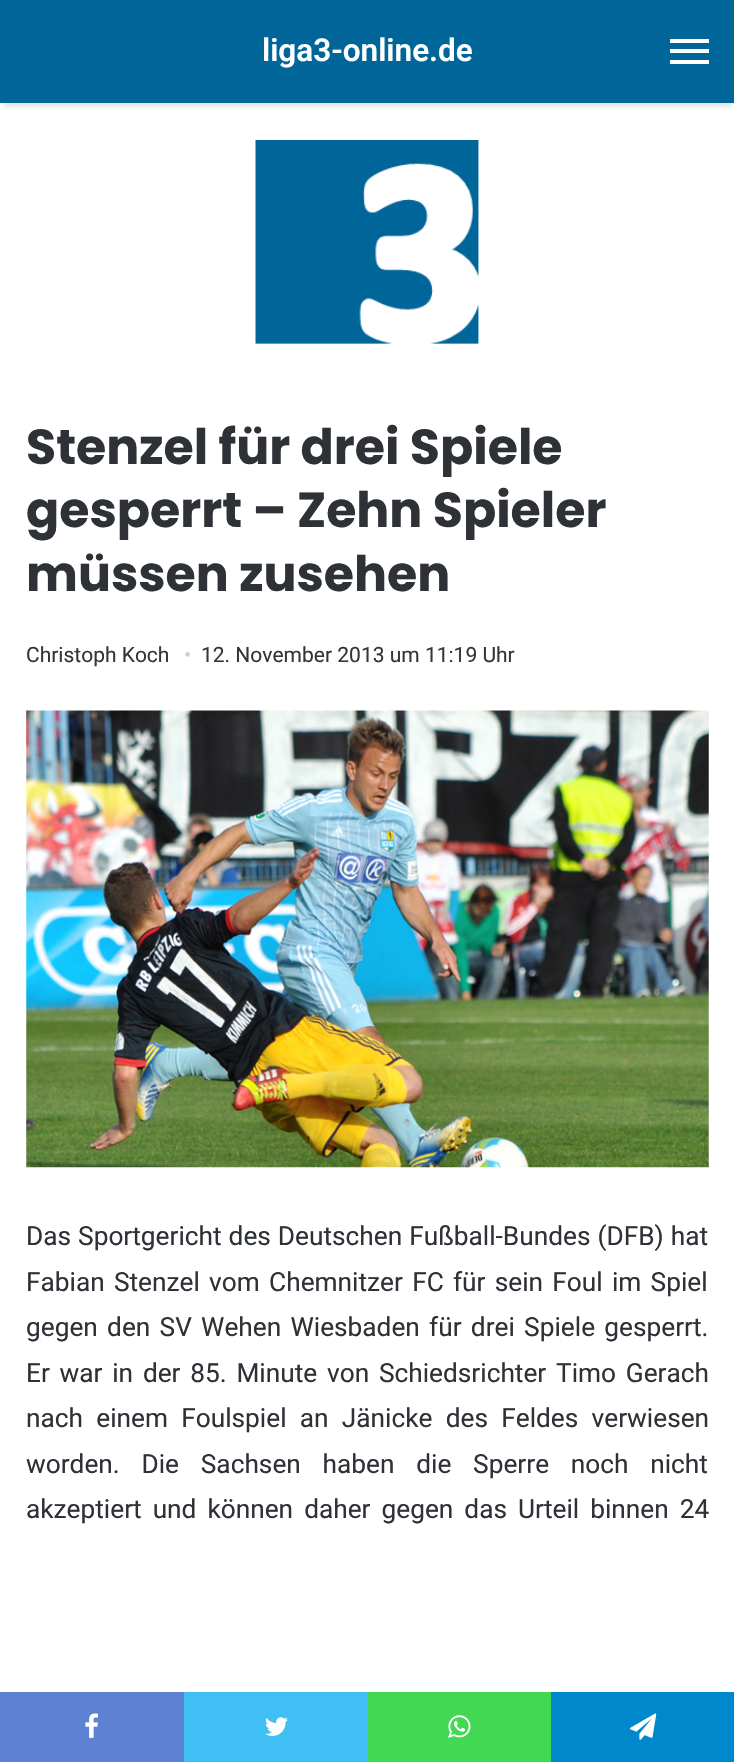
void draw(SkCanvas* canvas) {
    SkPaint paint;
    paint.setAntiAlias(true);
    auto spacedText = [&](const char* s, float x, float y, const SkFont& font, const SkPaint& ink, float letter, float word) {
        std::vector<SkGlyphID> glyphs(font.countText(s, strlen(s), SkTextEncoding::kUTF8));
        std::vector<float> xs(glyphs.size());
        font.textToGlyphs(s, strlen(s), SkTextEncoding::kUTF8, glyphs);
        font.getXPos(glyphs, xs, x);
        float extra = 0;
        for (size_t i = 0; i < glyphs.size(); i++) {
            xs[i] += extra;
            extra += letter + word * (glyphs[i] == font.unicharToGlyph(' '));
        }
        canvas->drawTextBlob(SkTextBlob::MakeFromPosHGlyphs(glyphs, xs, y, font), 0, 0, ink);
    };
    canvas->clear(0xFFFFFFFF);
    paint.setColor(0x1A000000);
    paint.setMaskFilter(SkMaskFilter::MakeBlur(kNormal_SkBlurStyle, 2));
    canvas->drawRect(SkRect::MakeXYWH(4, 11, 728, 96), paint);
    paint.setMaskFilter(nullptr);
    paint.setColor(0xFF006699);
    canvas->drawRect(SkRect::MakeXYWH(0, 0, 734, 103), paint);
    SkFont font1(fontMgr->matchFamilyStyle("Roboto", SkFontStyle(600, SkFontStyle::kNormal_Width, SkFontStyle::kUpright_Slant)), 31.5f);
    font1.setSubpixel(true);
    paint.setColor(0xFFFFFFFF);
    canvas->drawString("liga3-online.de", 262, 61, font1, paint);
    canvas->drawRect(SkRect::MakeXYWH(670, 49, 39, 4), paint);
    canvas->drawRect(SkRect::MakeXYWH(670, 39, 39, 4), paint);
    canvas->drawRect(SkRect::MakeXYWH(670, 60, 39, 4), paint);
    canvas->drawImageRect(SkImages::DeferredFromEncodedData(SkData::MakeFromFileName("img1.png")), SkRect::MakeXYWH(255, 140, 224, 204), SkSamplingOptions());
    SkFont font2(fontMgr->matchFamilyStyle("Poppins", SkFontStyle::Bold()), 49);
    font2.setSubpixel(true);
    paint.setColor(0xFF2E3136);
    canvas->drawString("Stenzel für drei Spiele", 26, 464, font2, paint);
    canvas->drawString("gesperrt – Zehn Spieler", 26, 527, font2, paint);
    canvas->drawString("müssen zusehen", 26, 591, font2, paint);
    SkFont font3(fontMgr->matchFamilyStyle("Roboto", SkFontStyle::Normal()), 21);
    font3.setSubpixel(true);
    paint.setColor(0xFF353535);
    canvas->drawString("Christoph Koch", 26, 662, font3, paint);
    paint.setColor(0xFFCDCDCD);
    canvas->drawString("•", 184, 662, font3, paint);
    paint.setColor(0xFF353535);
    canvas->drawString("12. November 2013 um 11:19 Uhr", 201, 662, font3, paint);
    canvas->drawImageRect(SkImages::DeferredFromEncodedData(SkData::MakeFromFileName("img2.png")), SkRect::MakeXYWH(26, 710, 683, 458), SkSamplingOptions());
    SkFont font4(fontMgr->matchFamilyStyle("Roboto", SkFontStyle::Normal()), 26.25f);
    font4.setSubpixel(true);
    paint.setColor(0xFF2E3136);
    spacedText("Das Sportgericht des Deutschen Fußball-Bundes (DFB) hat", 26, 1245, font4, paint, 0, 0.5f);
    spacedText("Fabian Stenzel vom Chemnitzer FC für sein Foul im Spiel", 26, 1291, font4, paint, 0, 2.75f);
    spacedText("gegen den SV Wehen Wiesbaden für drei Spiele gesperrt.", 26, 1336, font4, paint, 0, 2.75f);
    spacedText("Er war in der 85. Minute von Schiedsrichter Timo Gerach", 26, 1382, font4, paint, 0, 3.25f);
    spacedText("nach einem Foulspiel an Jänicke des Feldes verwiesen", 26, 1427, font4, paint, 0, 6.75f);
    spacedText("worden. Die Sachsen haben die Sperre noch nicht", 26, 1473, font4, paint, 0, 15.25f);
    spacedText("akzeptiert und können daher gegen das Urteil binnen 24", 26, 1518, font4, paint, 0, 4.5f);
    paint.setColor(0xFF5D82D1);
    canvas->drawRect(SkRect::MakeXYWH(0, 1692, 184, 70), paint);
    canvas->drawImageRect(SkImages::DeferredFromEncodedData(SkData::MakeFromFileName("img3.png")), SkRect::MakeXYWH(85, 1713, 14, 25), SkSamplingOptions());
    paint.setColor(0xFF40BFF5);
    canvas->drawRect(SkRect::MakeXYWH(184, 1692, 184, 70), paint);
    canvas->drawImageRect(SkImages::DeferredFromEncodedData(SkData::MakeFromFileName("img4.png")), SkRect::MakeXYWH(265, 1717, 23, 19), SkSamplingOptions());
    paint.setColor(0xFF43D854);
    canvas->drawRect(SkRect::MakeXYWH(368, 1692, 183, 70), paint);
    canvas->drawImageRect(SkImages::DeferredFromEncodedData(SkData::MakeFromFileName("img5.png")), SkRect::MakeXYWH(448, 1715, 23, 23), SkSamplingOptions());
    paint.setColor(0xFF0088CC);
    canvas->drawRect(SkRect::MakeXYWH(551, 1692, 183, 70), paint);
    canvas->drawImageRect(SkImages::DeferredFromEncodedData(SkData::MakeFromFileName("img6.png")), SkRect::MakeXYWH(630, 1713, 27, 27), SkSamplingOptions());
}
